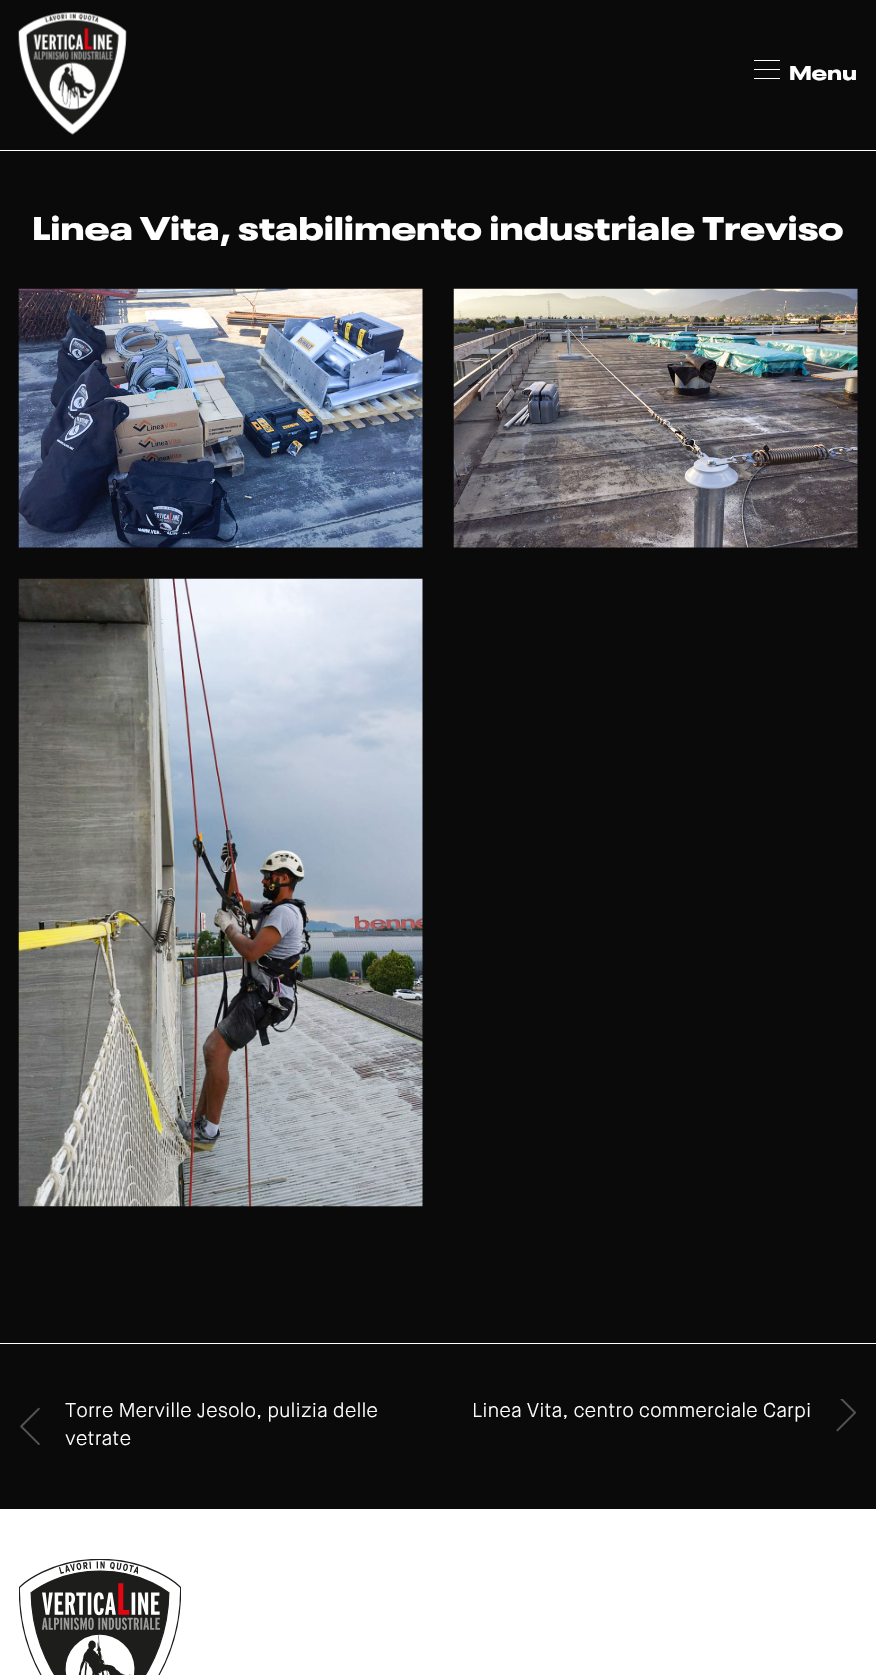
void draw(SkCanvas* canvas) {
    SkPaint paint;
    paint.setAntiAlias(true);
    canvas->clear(0xFFFFFFFF);
    paint.setColor(0xFF0A0A0A);
    canvas->drawRect(SkRect::MakeXYWH(0, 0, 876, 1509), paint);
    paint.setColor(0xFFFFFFFF);
    canvas->drawRect(SkRect::MakeXYWH(0, 150, 876, 1), paint);
    canvas->drawImageRect(SkImages::DeferredFromEncodedData(SkData::MakeFromFileName("img1.png")), SkRect::MakeXYWH(18, 12, 109, 123), SkSamplingOptions());
    canvas->drawRect(SkRect::MakeXYWH(754, 60, 26, 1), paint);
    canvas->drawRect(SkRect::MakeXYWH(754, 69, 26, 1), paint);
    canvas->drawRect(SkRect::MakeXYWH(754, 78, 26, 1), paint);
    SkFont font1(fontMgr->matchFamilyStyle("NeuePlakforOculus", SkFontStyle(800, SkFontStyle::kNormal_Width, SkFontStyle::kUpright_Slant)), 20);
    font1.setSubpixel(true);
    canvas->drawString("Menu", 789, 80, font1, paint);
    SkFont font2(fontMgr->matchFamilyStyle("NeuePlakforOculus", SkFontStyle(800, SkFontStyle::kNormal_Width, SkFontStyle::kUpright_Slant)), 32.5f);
    font2.setSubpixel(true);
    canvas->drawString("Linea Vita, stabilimento industriale Treviso", 32, 240, font2, paint);
    canvas->drawImageRect(SkImages::DeferredFromEncodedData(SkData::MakeFromFileName("img2.png")), SkRect::MakeXYWH(18, 288, 405, 260), SkSamplingOptions());
    canvas->drawImageRect(SkImages::DeferredFromEncodedData(SkData::MakeFromFileName("img3.png")), SkRect::MakeXYWH(453, 288, 405, 260), SkSamplingOptions());
    canvas->drawImageRect(SkImages::DeferredFromEncodedData(SkData::MakeFromFileName("img4.png")), SkRect::MakeXYWH(18, 578, 405, 629), SkSamplingOptions());
    canvas->drawRect(SkRect::MakeXYWH(0, 1343, 876, 1), paint);
    canvas->drawImageRect(SkImages::DeferredFromEncodedData(SkData::MakeFromFileName("img5.png")), SkRect::MakeXYWH(20, 1407, 20, 38), SkSamplingOptions());
    SkFont font3(fontMgr->matchFamilyStyle("Maison Neue", SkFontStyle(300, SkFontStyle::kNormal_Width, SkFontStyle::kUpright_Slant)), 20);
    font3.setSubpixel(true);
    canvas->drawString("Torre Merville Jesolo, pulizia delle", 65, 1417, font3, paint);
    canvas->drawString("vetrate", 65, 1445, font3, paint);
    canvas->drawString("Linea Vita, centro commerciale Carpi", 472, 1417, font3, paint);
    canvas->drawImageRect(SkImages::DeferredFromEncodedData(SkData::MakeFromFileName("img6.png")), SkRect::MakeXYWH(836, 1399, 20, 33), SkSamplingOptions());
    canvas->drawImageRect(SkImages::DeferredFromEncodedData(SkData::MakeFromFileName("img7.png")), SkRect::MakeXYWH(19, 1559, 162, 116), SkSamplingOptions());
}
